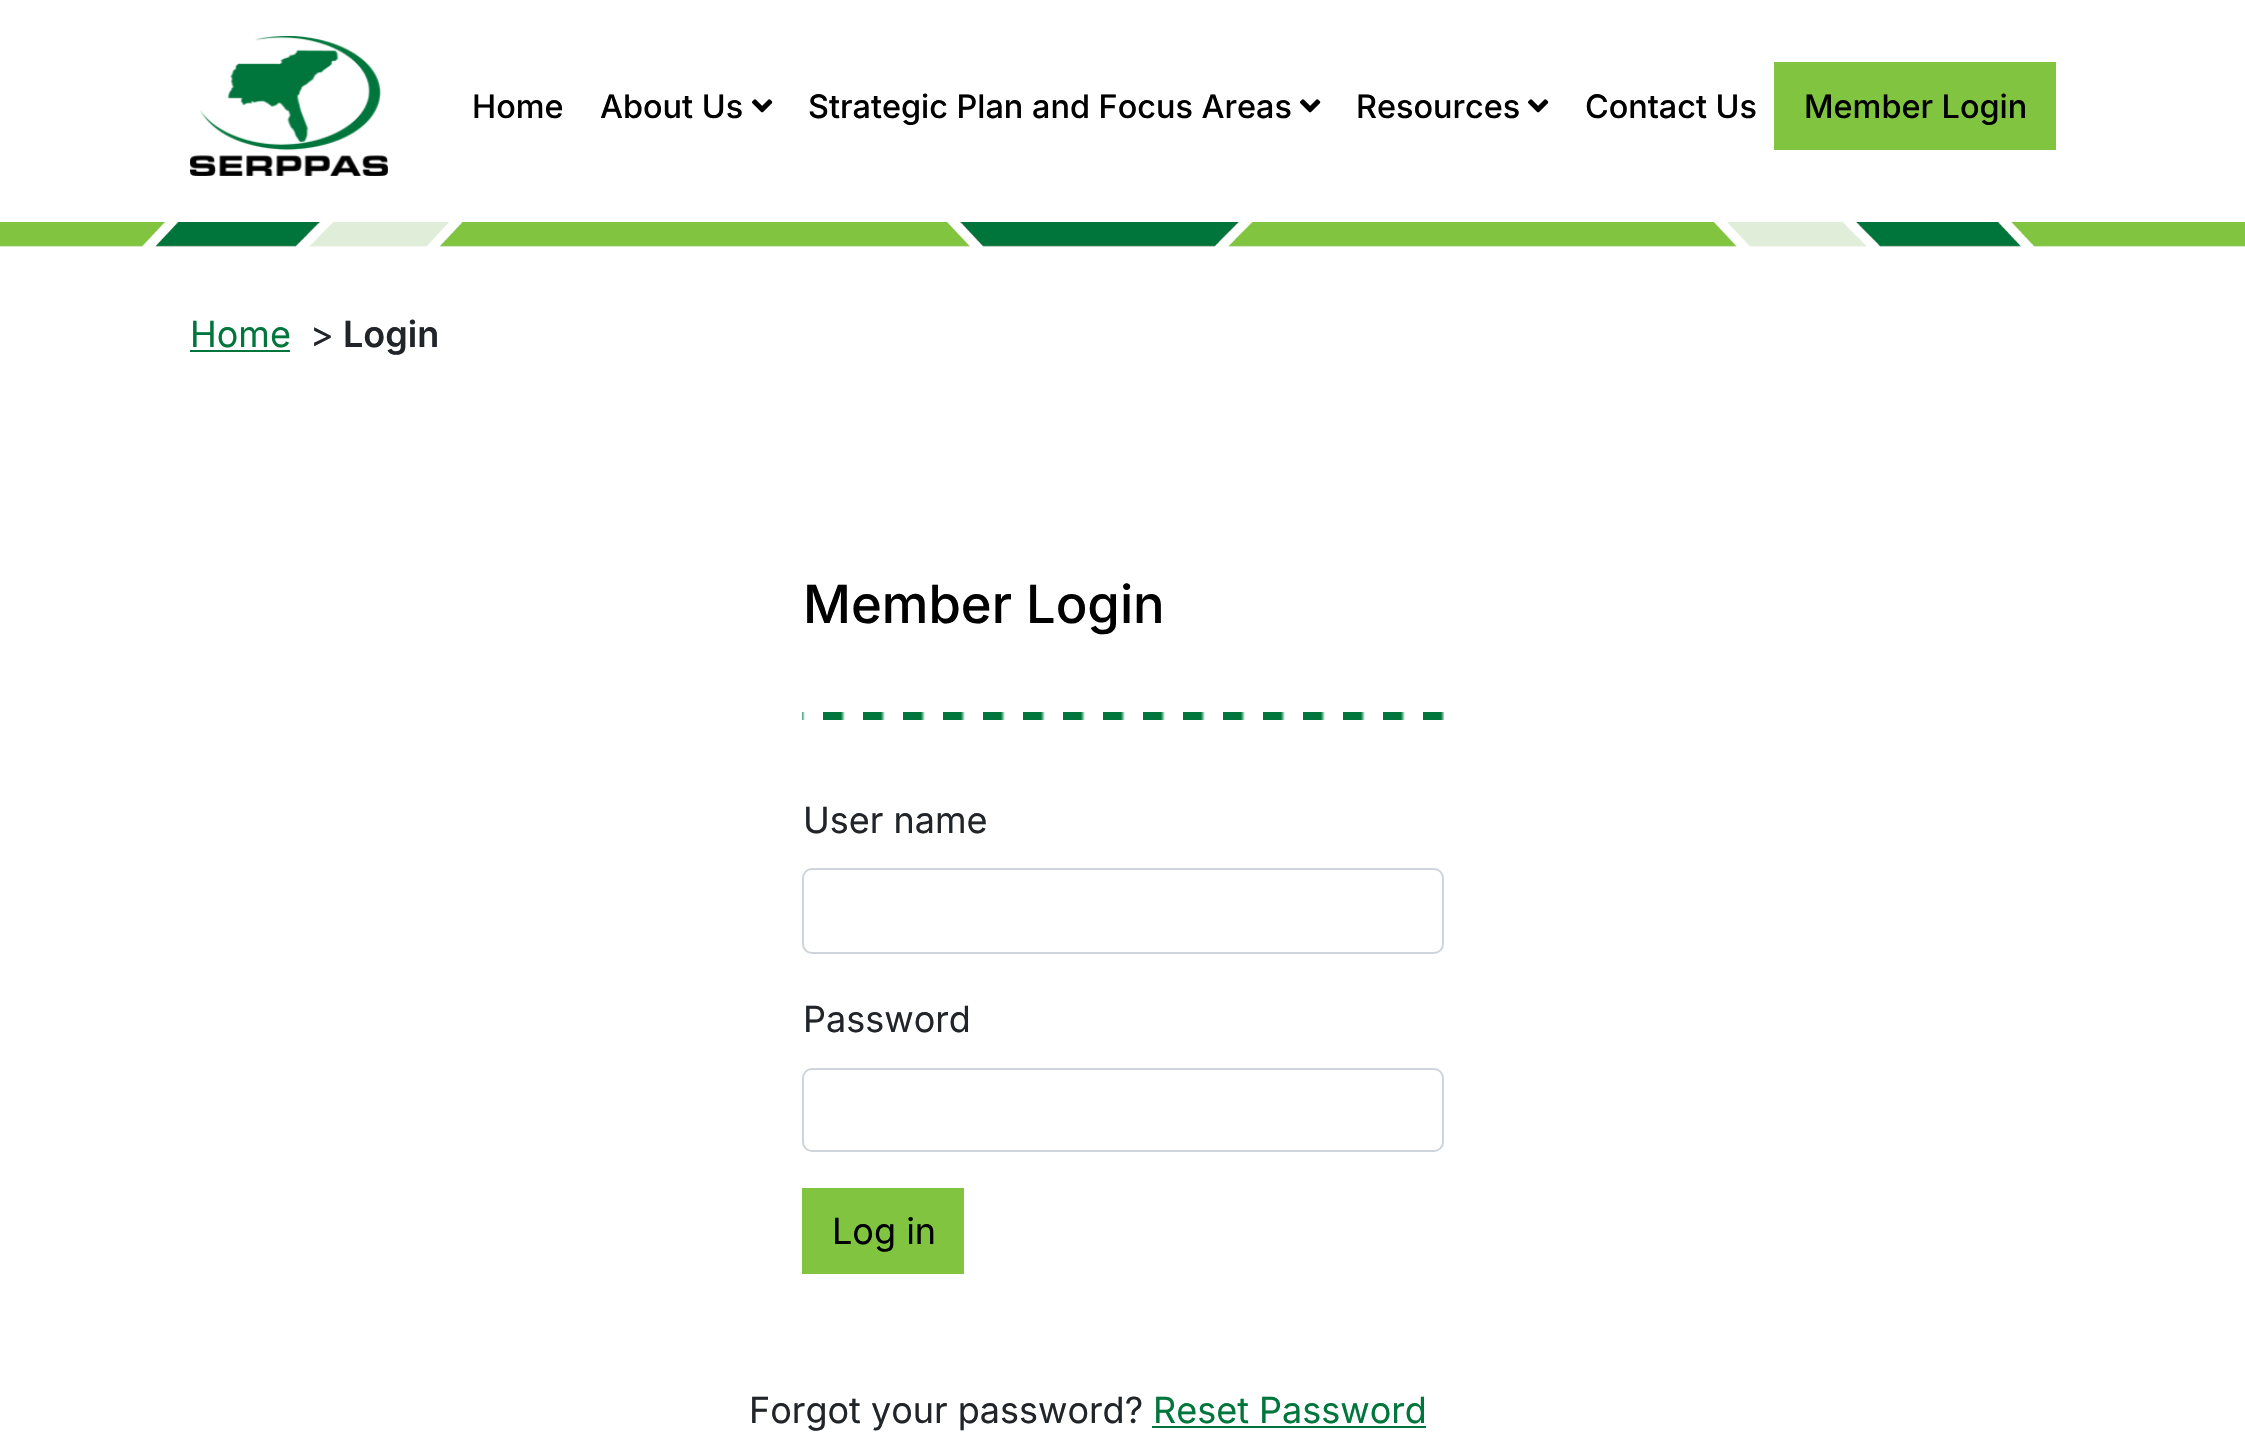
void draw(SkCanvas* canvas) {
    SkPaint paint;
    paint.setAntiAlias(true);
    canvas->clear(0xFFFFFFFF);
    canvas->drawImageRect(SkImages::DeferredFromEncodedData(SkData::MakeFromFileName("img1.png")), SkRect::MakeXYWH(190, 36, 198, 140), SkSamplingOptions());
    SkFont font1(fontMgr->matchFamilyStyle("Inter", SkFontStyle(500, SkFontStyle::kNormal_Width, SkFontStyle::kUpright_Slant)), 32.4f);
    font1.setSubpixel(true);
    paint.setColor(0xFF000000);
    canvas->drawString("Home", 472, 118, font1, paint);
    canvas->drawString("About Us", 600, 118, font1, paint);
    canvas->drawImageRect(SkImages::DeferredFromEncodedData(SkData::MakeFromFileName("img2.png")), SkRect::MakeXYWH(752, 99, 21, 14), SkSamplingOptions());
    canvas->drawString("Strategic Plan and Focus Areas", 808, 118, font1, paint);
    canvas->drawImageRect(SkImages::DeferredFromEncodedData(SkData::MakeFromFileName("img2.png")), SkRect::MakeXYWH(1300, 99, 21, 14), SkSamplingOptions());
    canvas->drawString("Resources", 1356, 118, font1, paint);
    canvas->drawImageRect(SkImages::DeferredFromEncodedData(SkData::MakeFromFileName("img2.png")), SkRect::MakeXYWH(1528, 99, 21, 14), SkSamplingOptions());
    canvas->drawString("Contact Us", 1585, 118, font1, paint);
    paint.setColor(0xFF80C440);
    canvas->drawRect(SkRect::MakeXYWH(1774, 62, 282, 88), paint);
    paint.setColor(0xFF000000);
    canvas->drawString("Member Login", 1804, 118, font1, paint);
    canvas->drawImageRect(SkImages::DeferredFromEncodedData(SkData::MakeFromFileName("img3.png")), SkRect::MakeXYWH(0, 222, 2245, 25), SkSamplingOptions());
    SkFont font2(fontMgr->matchFamilyStyle("Inter", SkFontStyle::Normal()), 36);
    font2.setSubpixel(true);
    paint.setColor(0xFF00753C);
    canvas->drawString("Home", 190, 347, font2, paint);
    canvas->drawRect(SkRect::MakeXYWH(190, 350, 100, 2), paint);
    paint.setColor(0xFF212529);
    canvas->drawString(">", 310, 347, font2, paint);
    SkFont font3(fontMgr->matchFamilyStyle("Inter", SkFontStyle(600, SkFontStyle::kNormal_Width, SkFontStyle::kUpright_Slant)), 36);
    font3.setSubpixel(true);
    canvas->drawString("Login", 343, 347, font3, paint);
    SkFont font4(fontMgr->matchFamilyStyle("Inter", SkFontStyle(500, SkFontStyle::kNormal_Width, SkFontStyle::kUpright_Slant)), 52.5f);
    font4.setSubpixel(true);
    paint.setColor(0xFF000000);
    canvas->drawString("Member Login", 803, 623, font4, paint);
    canvas->drawImageRect(SkImages::DeferredFromEncodedData(SkData::MakeFromFileName("img4.png")), SkRect::MakeXYWH(802, 712, 642, 8), SkSamplingOptions());
    paint.setColor(0xFF212529);
    canvas->drawString("User name", 803, 833, font2, paint);
    paint.setStyle(SkPaint::kStroke_Style);
    paint.setStrokeWidth(2);
    paint.setColor(0xFFCED4DA);
    canvas->drawRoundRect(SkRect::MakeXYWH(803, 869, 640, 84), 9, 9, paint);
    paint.setStyle(SkPaint::kFill_Style);
    paint.setColor(0xFF212529);
    canvas->drawString("Password", 803, 1032, font2, paint);
    paint.setStyle(SkPaint::kStroke_Style);
    paint.setColor(0xFFCED4DA);
    canvas->drawRoundRect(SkRect::MakeXYWH(803, 1069, 640, 82), 9, 9, paint);
    paint.setStyle(SkPaint::kFill_Style);
    paint.setColor(0xFF80C440);
    canvas->drawRect(SkRect::MakeXYWH(802, 1188, 162, 86), paint);
    paint.setColor(0xFF000000);
    canvas->drawString("Log in", 832, 1244, font2, paint);
    paint.setColor(0xFF212529);
    canvas->drawString("Forgot your password?", 749, 1423, font2, paint);
    paint.setColor(0xFF00753C);
    canvas->drawString("Reset Password", 1153, 1423, font2, paint);
    paint.setColor(0xFF00753B);
    canvas->drawRect(SkRect::MakeXYWH(1152, 1426, 274, 2), paint);
}
